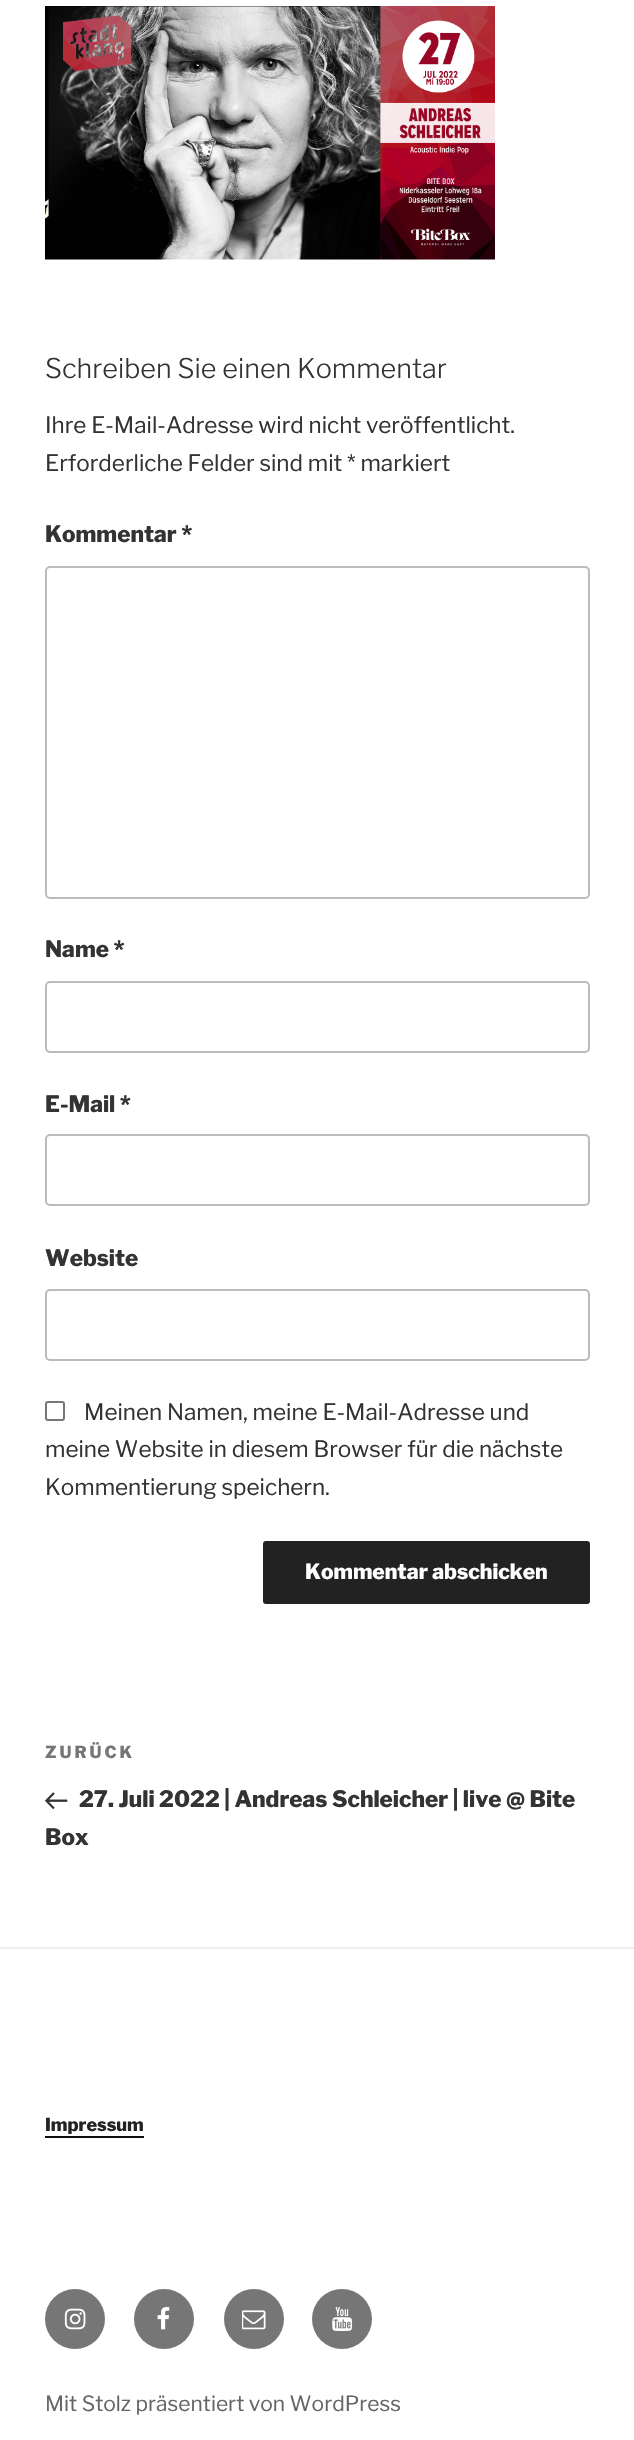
void draw(SkCanvas* canvas) {
    SkPaint paint;
    paint.setAntiAlias(true);
    auto spacedText = [&](const char* s, float x, float y, const SkFont& font, const SkPaint& ink, float letter, float word) {
        std::vector<SkGlyphID> glyphs(font.countText(s, strlen(s), SkTextEncoding::kUTF8));
        std::vector<float> xs(glyphs.size());
        font.textToGlyphs(s, strlen(s), SkTextEncoding::kUTF8, glyphs);
        font.getXPos(glyphs, xs, x);
        float extra = 0;
        for (size_t i = 0; i < glyphs.size(); i++) {
            xs[i] += extra;
            extra += letter + word * (glyphs[i] == font.unicharToGlyph(' '));
        }
        canvas->drawTextBlob(SkTextBlob::MakeFromPosHGlyphs(glyphs, xs, y, font), 0, 0, ink);
    };
    canvas->clear(0xFFFFFFFF);
    canvas->drawImageRect(SkImages::DeferredFromEncodedData(SkData::MakeFromFileName("img1.png")), SkRect::MakeXYWH(45, 6, 450, 254), SkSamplingOptions());
    SkFont font1(fontMgr->matchFamilyStyle("Libre Franklin", SkFontStyle(100, SkFontStyle::kNormal_Width, SkFontStyle::kUpright_Slant)), 27);
    font1.setSubpixel(true);
    paint.setColor(0xFF333333);
    canvas->drawString("Schreiben Sie einen Kommentar", 45, 378, font1, paint);
    SkFont font2(fontMgr->matchFamilyStyle("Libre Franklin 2", SkFontStyle(100, SkFontStyle::kNormal_Width, SkFontStyle::kUpright_Slant)), 22.5f);
    font2.setSubpixel(true);
    canvas->drawString("Ihre E-Mail-Adresse wird nicht veröffentlicht.", 45, 433, font2, paint);
    canvas->drawString("Erforderliche Felder sind mit * markiert", 45, 471, font2, paint);
    SkFont font3(fontMgr->matchFamilyStyle("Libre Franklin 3", SkFontStyle(100, SkFontStyle::kNormal_Width, SkFontStyle::kUpright_Slant)), 22.5f);
    font3.setSubpixel(true);
    canvas->drawString("Kommentar *", 45, 542, font3, paint);
    paint.setStyle(SkPaint::kStroke_Style);
    paint.setStrokeWidth(2);
    paint.setColor(0xFFBBBBBB);
    canvas->drawRoundRect(SkRect::MakeXYWH(46, 567, 543, 331), 4, 4, paint);
    paint.setStyle(SkPaint::kFill_Style);
    paint.setColor(0xFF333333);
    canvas->drawString("Name *", 45, 957, font3, paint);
    paint.setStyle(SkPaint::kStroke_Style);
    paint.setColor(0xFFBBBBBB);
    canvas->drawRoundRect(SkRect::MakeXYWH(46, 982, 543, 70), 4, 4, paint);
    paint.setStyle(SkPaint::kFill_Style);
    paint.setColor(0xFF333333);
    canvas->drawString("E-Mail *", 45, 1112, font3, paint);
    paint.setStyle(SkPaint::kStroke_Style);
    paint.setColor(0xFFBBBBBB);
    canvas->drawRoundRect(SkRect::MakeXYWH(46, 1135, 543, 70), 4, 4, paint);
    paint.setStyle(SkPaint::kFill_Style);
    paint.setColor(0xFF333333);
    canvas->drawString("Website", 45, 1266, font3, paint);
    paint.setStyle(SkPaint::kStroke_Style);
    paint.setColor(0xFFBBBBBB);
    canvas->drawRoundRect(SkRect::MakeXYWH(46, 1290, 543, 70), 4, 4, paint);
    paint.setColor(0xFF767676);
    canvas->drawRoundRect(SkRect::MakeXYWH(46, 1402, 18, 18), 2, 2, paint);
    paint.setStyle(SkPaint::kFill_Style);
    paint.setColor(0xFF333333);
    canvas->drawString("Meinen Namen, meine E-Mail-Adresse und", 84, 1420, font2, paint);
    canvas->drawString("meine Website in diesem Browser für die nächste", 45, 1457, font2, paint);
    canvas->drawString("Kommentierung speichern.", 45, 1495, font2, paint);
    paint.setColor(0xFF222222);
    canvas->drawRoundRect(SkRect::MakeXYWH(263, 1541, 327, 63), 3, 3, paint);
    SkFont font4(fontMgr->matchFamilyStyle("Libre Franklin 3", SkFontStyle(100, SkFontStyle::kNormal_Width, SkFontStyle::kUpright_Slant)), 21);
    font4.setSubpixel(true);
    paint.setColor(0xFFFFFFFF);
    canvas->drawString("Kommentar abschicken", 305, 1579, font4, paint);
    SkFont font5(fontMgr->matchFamilyStyle("Libre Franklin 3", SkFontStyle(100, SkFontStyle::kNormal_Width, SkFontStyle::kUpright_Slant)), 16.5f);
    font5.setSubpixel(true);
    paint.setColor(0xFF767676);
    spacedText("ZURÜCK", 45, 1758, font5, paint, 3, 0);
    canvas->drawImageRect(SkImages::DeferredFromEncodedData(SkData::MakeFromFileName("img2.png")), SkRect::MakeXYWH(45, 1792, 23, 18), SkSamplingOptions());
    paint.setColor(0xFF333333);
    canvas->drawString("27. Juli 2022 | Andreas Schleicher | live @ Bite", 79, 1807, font3, paint);
    canvas->drawString("Box", 45, 1845, font3, paint);
    paint.setColor(0xFFEEEEEE);
    canvas->drawRect(SkRect::MakeXYWH(0, 1947, 634, 2), paint);
    SkFont font6(fontMgr->matchFamilyStyle("Libre Franklin 3", SkFontStyle(100, SkFontStyle::kNormal_Width, SkFontStyle::kUpright_Slant)), 18);
    font6.setSubpixel(true);
    paint.setColor(0xFF222222);
    canvas->drawString("Impressum", 45, 2131, font6, paint);
    paint.setColor(0xFF0F0F0F);
    canvas->drawRect(SkRect::MakeXYWH(45, 2136, 99, 2), paint);
    paint.setColor(0xFF767676);
    canvas->drawCircle(75, 2319, 30, paint);
    canvas->drawImageRect(SkImages::DeferredFromEncodedData(SkData::MakeFromFileName("img3.png")), SkRect::MakeXYWH(64, 2308, 22, 22), SkSamplingOptions());
    canvas->drawCircle(164, 2319, 30, paint);
    canvas->drawImageRect(SkImages::DeferredFromEncodedData(SkData::MakeFromFileName("img4.png")), SkRect::MakeXYWH(157, 2307, 13, 23), SkSamplingOptions());
    canvas->drawCircle(254, 2319, 30, paint);
    canvas->drawImageRect(SkImages::DeferredFromEncodedData(SkData::MakeFromFileName("img5.png")), SkRect::MakeXYWH(242, 2310, 24, 20), SkSamplingOptions());
    canvas->drawCircle(342, 2319, 30, paint);
    canvas->drawImageRect(SkImages::DeferredFromEncodedData(SkData::MakeFromFileName("img6.png")), SkRect::MakeXYWH(332, 2307, 21, 24), SkSamplingOptions());
    SkFont font7(fontMgr->matchFamilyStyle("Libre Franklin 2", SkFontStyle(100, SkFontStyle::kNormal_Width, SkFontStyle::kUpright_Slant)), 21);
    font7.setSubpixel(true);
    paint.setColor(0xFF666666);
    canvas->drawString("Mit Stolz präsentiert von WordPress", 45, 2411, font7, paint);
}
